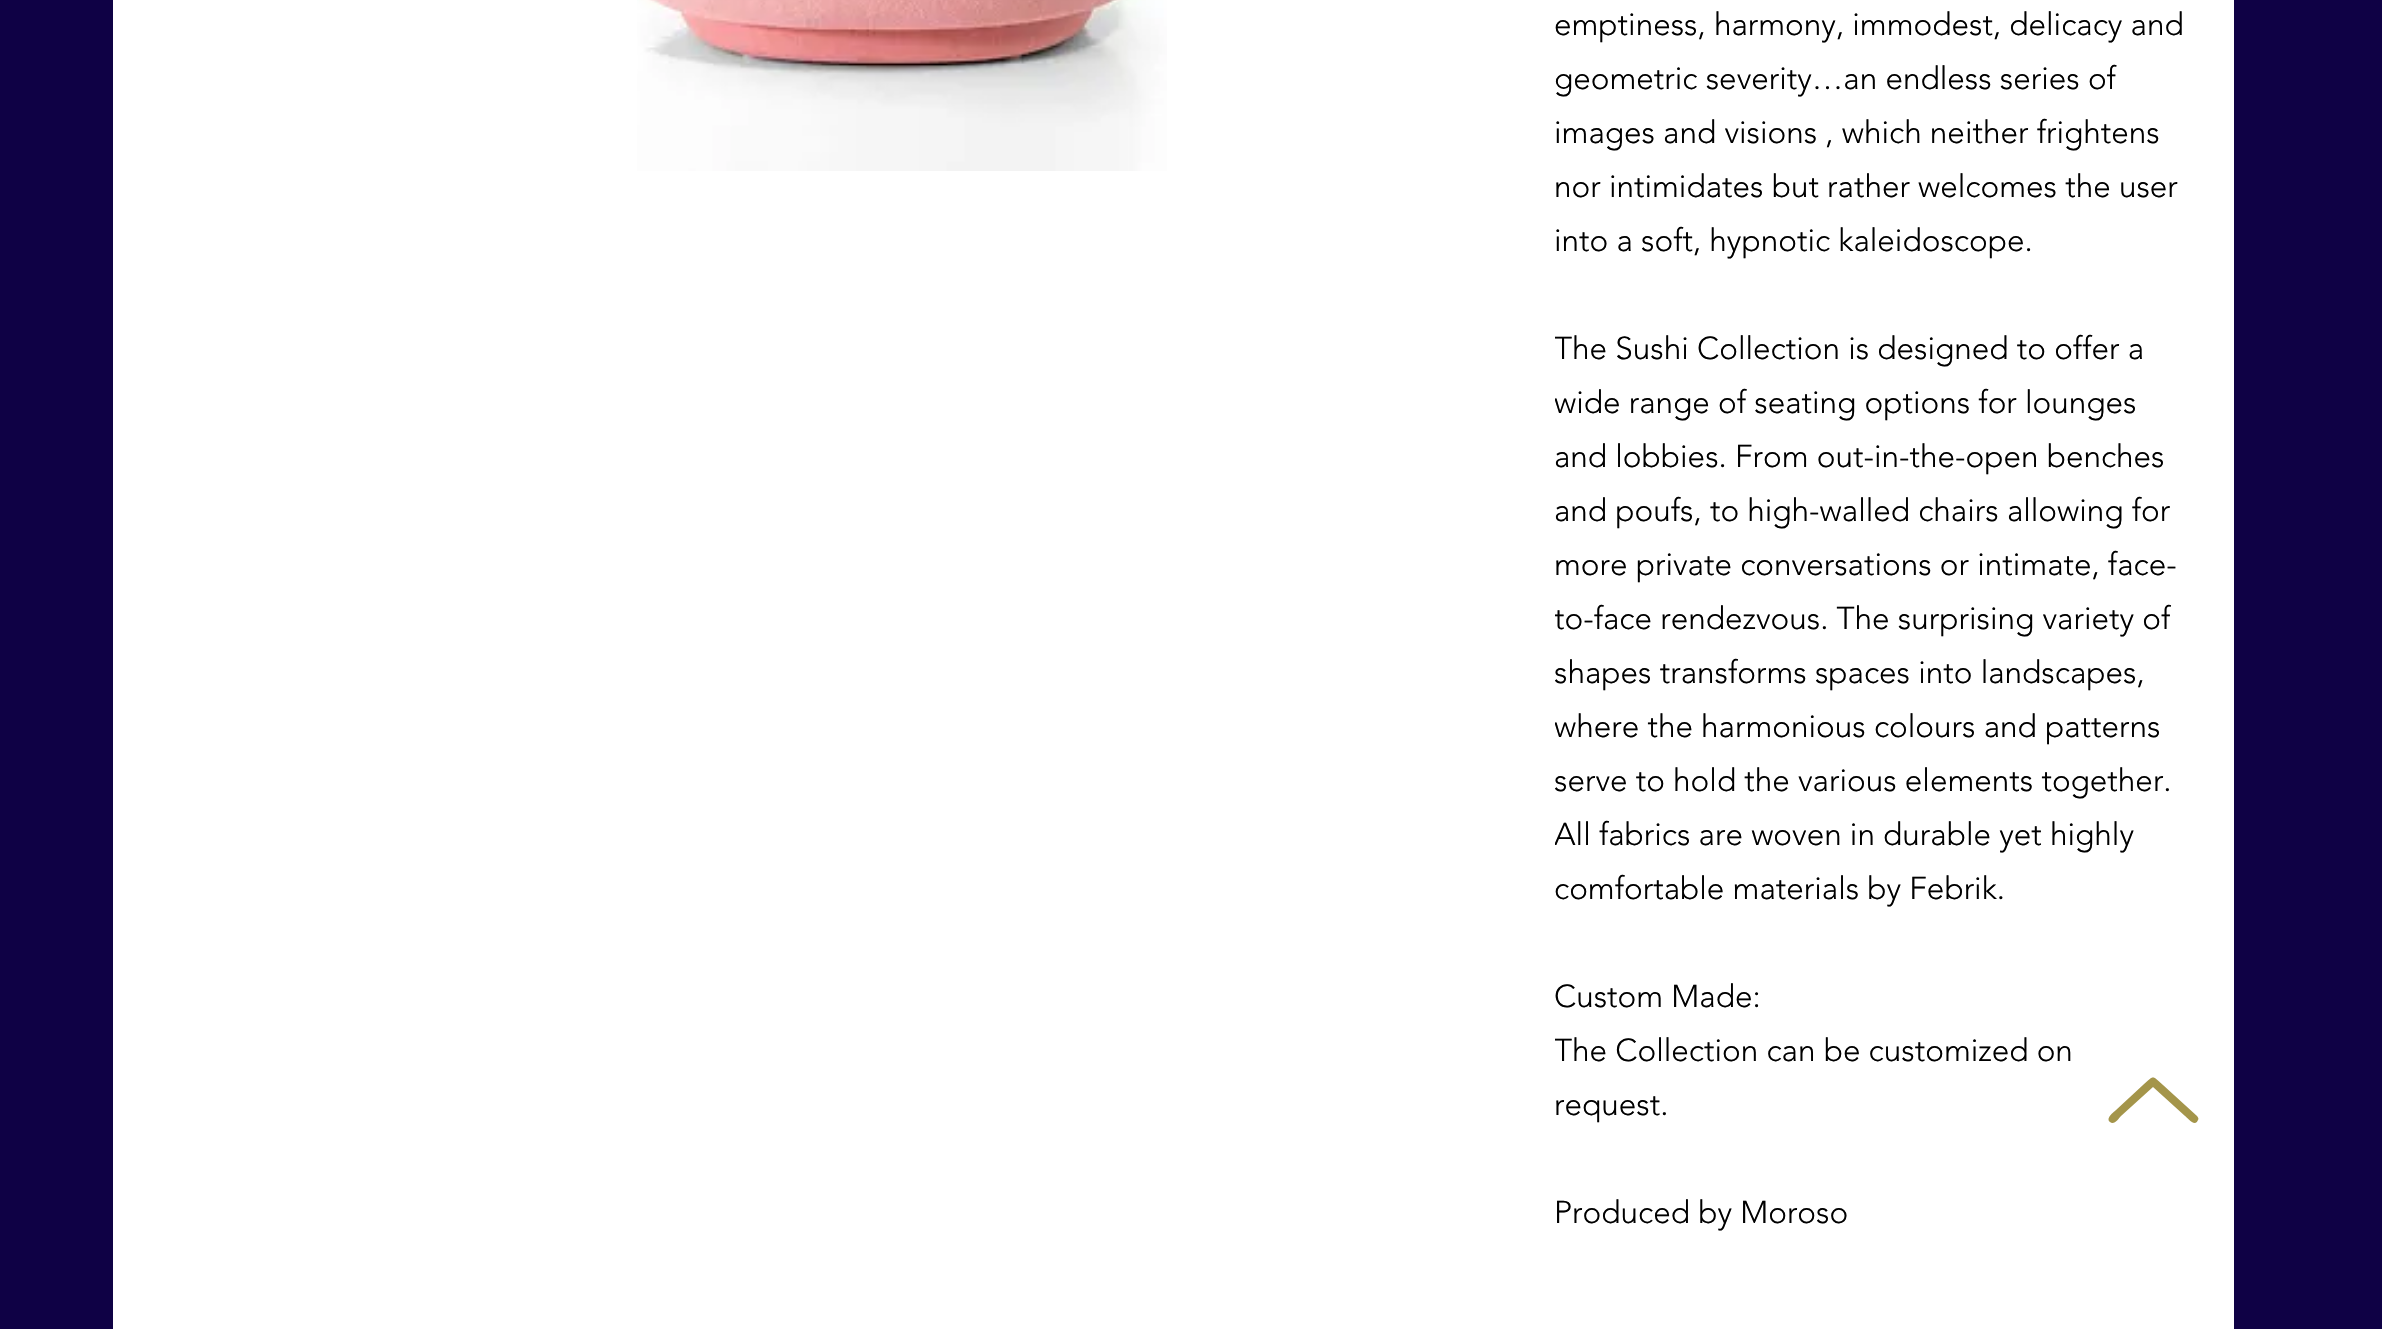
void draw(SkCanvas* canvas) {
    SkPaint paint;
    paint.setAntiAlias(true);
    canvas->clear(0xFF0F0145);
    paint.setColor(0xFFFFFFFF);
    canvas->drawRect(SkRect::MakeXYWH(113, 0, 2121, 1329), paint);
    canvas->drawImageRect(SkImages::DeferredFromEncodedData(SkData::MakeFromFileName("img1.png")), SkRect::MakeXYWH(637, 0, 530, 171), SkSamplingOptions());
    SkFont font1(fontMgr->matchFamilyStyle("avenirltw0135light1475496", SkFontStyle(300, SkFontStyle::kNormal_Width, SkFontStyle::kUpright_Slant)), 31.5f);
    font1.setSubpixel(true);
    paint.setColor(0xFF000000);
    canvas->drawString("emptiness, harmony, immodest, delicacy and", 1554, 35, font1, paint);
    canvas->drawString("geometric severity…an endless series of", 1554, 89, font1, paint);
    canvas->drawString("images and visions , which neither frightens", 1554, 143, font1, paint);
    canvas->drawString("nor intimidates but rather welcomes the user", 1554, 197, font1, paint);
    canvas->drawString("into a soft, hypnotic kaleidoscope.", 1554, 251, font1, paint);
    canvas->save();
    canvas->clipRect(SkRect::MakeXYWH(1555, 0, 630, 1242));
    canvas->drawString("The Sushi Collection is designed to offer a", 1554, 359, font1, paint);
    canvas->drawString("wide range of seating options for lounges", 1554, 413, font1, paint);
    canvas->restore();
    canvas->drawString("and lobbies. From out-in-the-open benches", 1554, 467, font1, paint);
    canvas->drawString("and poufs, to high-walled chairs allowing for", 1554, 521, font1, paint);
    canvas->drawString("more private conversations or intimate, face-", 1554, 575, font1, paint);
    canvas->save();
    canvas->clipRect(SkRect::MakeXYWH(1555, 0, 630, 1242));
    canvas->drawString("to-face rendezvous. The surprising variety of", 1554, 629, font1, paint);
    canvas->restore();
    canvas->drawString("shapes transforms spaces into landscapes,", 1554, 683, font1, paint);
    canvas->save();
    canvas->clipRect(SkRect::MakeXYWH(1555, 0, 630, 1242));
    canvas->drawString("where the harmonious colours and patterns", 1554, 737, font1, paint);
    canvas->restore();
    canvas->drawString("serve to hold the various elements together.", 1554, 791, font1, paint);
    canvas->save();
    canvas->clipRect(SkRect::MakeXYWH(1555, 0, 630, 1242));
    canvas->drawString("All fabrics are woven in durable yet highly", 1554, 845, font1, paint);
    canvas->restore();
    canvas->drawString("comfortable materials by Febrik.", 1554, 899, font1, paint);
    canvas->drawString("Custom Made:", 1554, 1007, font1, paint);
    canvas->save();
    canvas->clipRect(SkRect::MakeXYWH(1555, 0, 630, 1242));
    canvas->drawString("The Collection can be customized on", 1554, 1061, font1, paint);
    canvas->restore();
    canvas->drawString("request.", 1554, 1115, font1, paint);
    canvas->drawString("Produced by Moroso", 1554, 1223, font1, paint);
    paint.setColor(0xFFA4954A);
    canvas->drawPath(SkPathBuilder().moveTo(2197, 1116).lineTo(2163, 1085).cubicTo(2152, 1075, 2154, 1075, 2143, 1085).lineTo(2116, 1110).cubicTo(2115, 1111, 2105, 1118, 2110, 1122).cubicTo(2114, 1126, 2119, 1118, 2121, 1116).lineTo(2153, 1087).lineTo(2185, 1116).cubicTo(2187, 1117, 2195, 1128, 2198, 1120).cubicTo(2199, 1119, 2198, 1117, 2197, 1116).close().detach(), paint);
}
